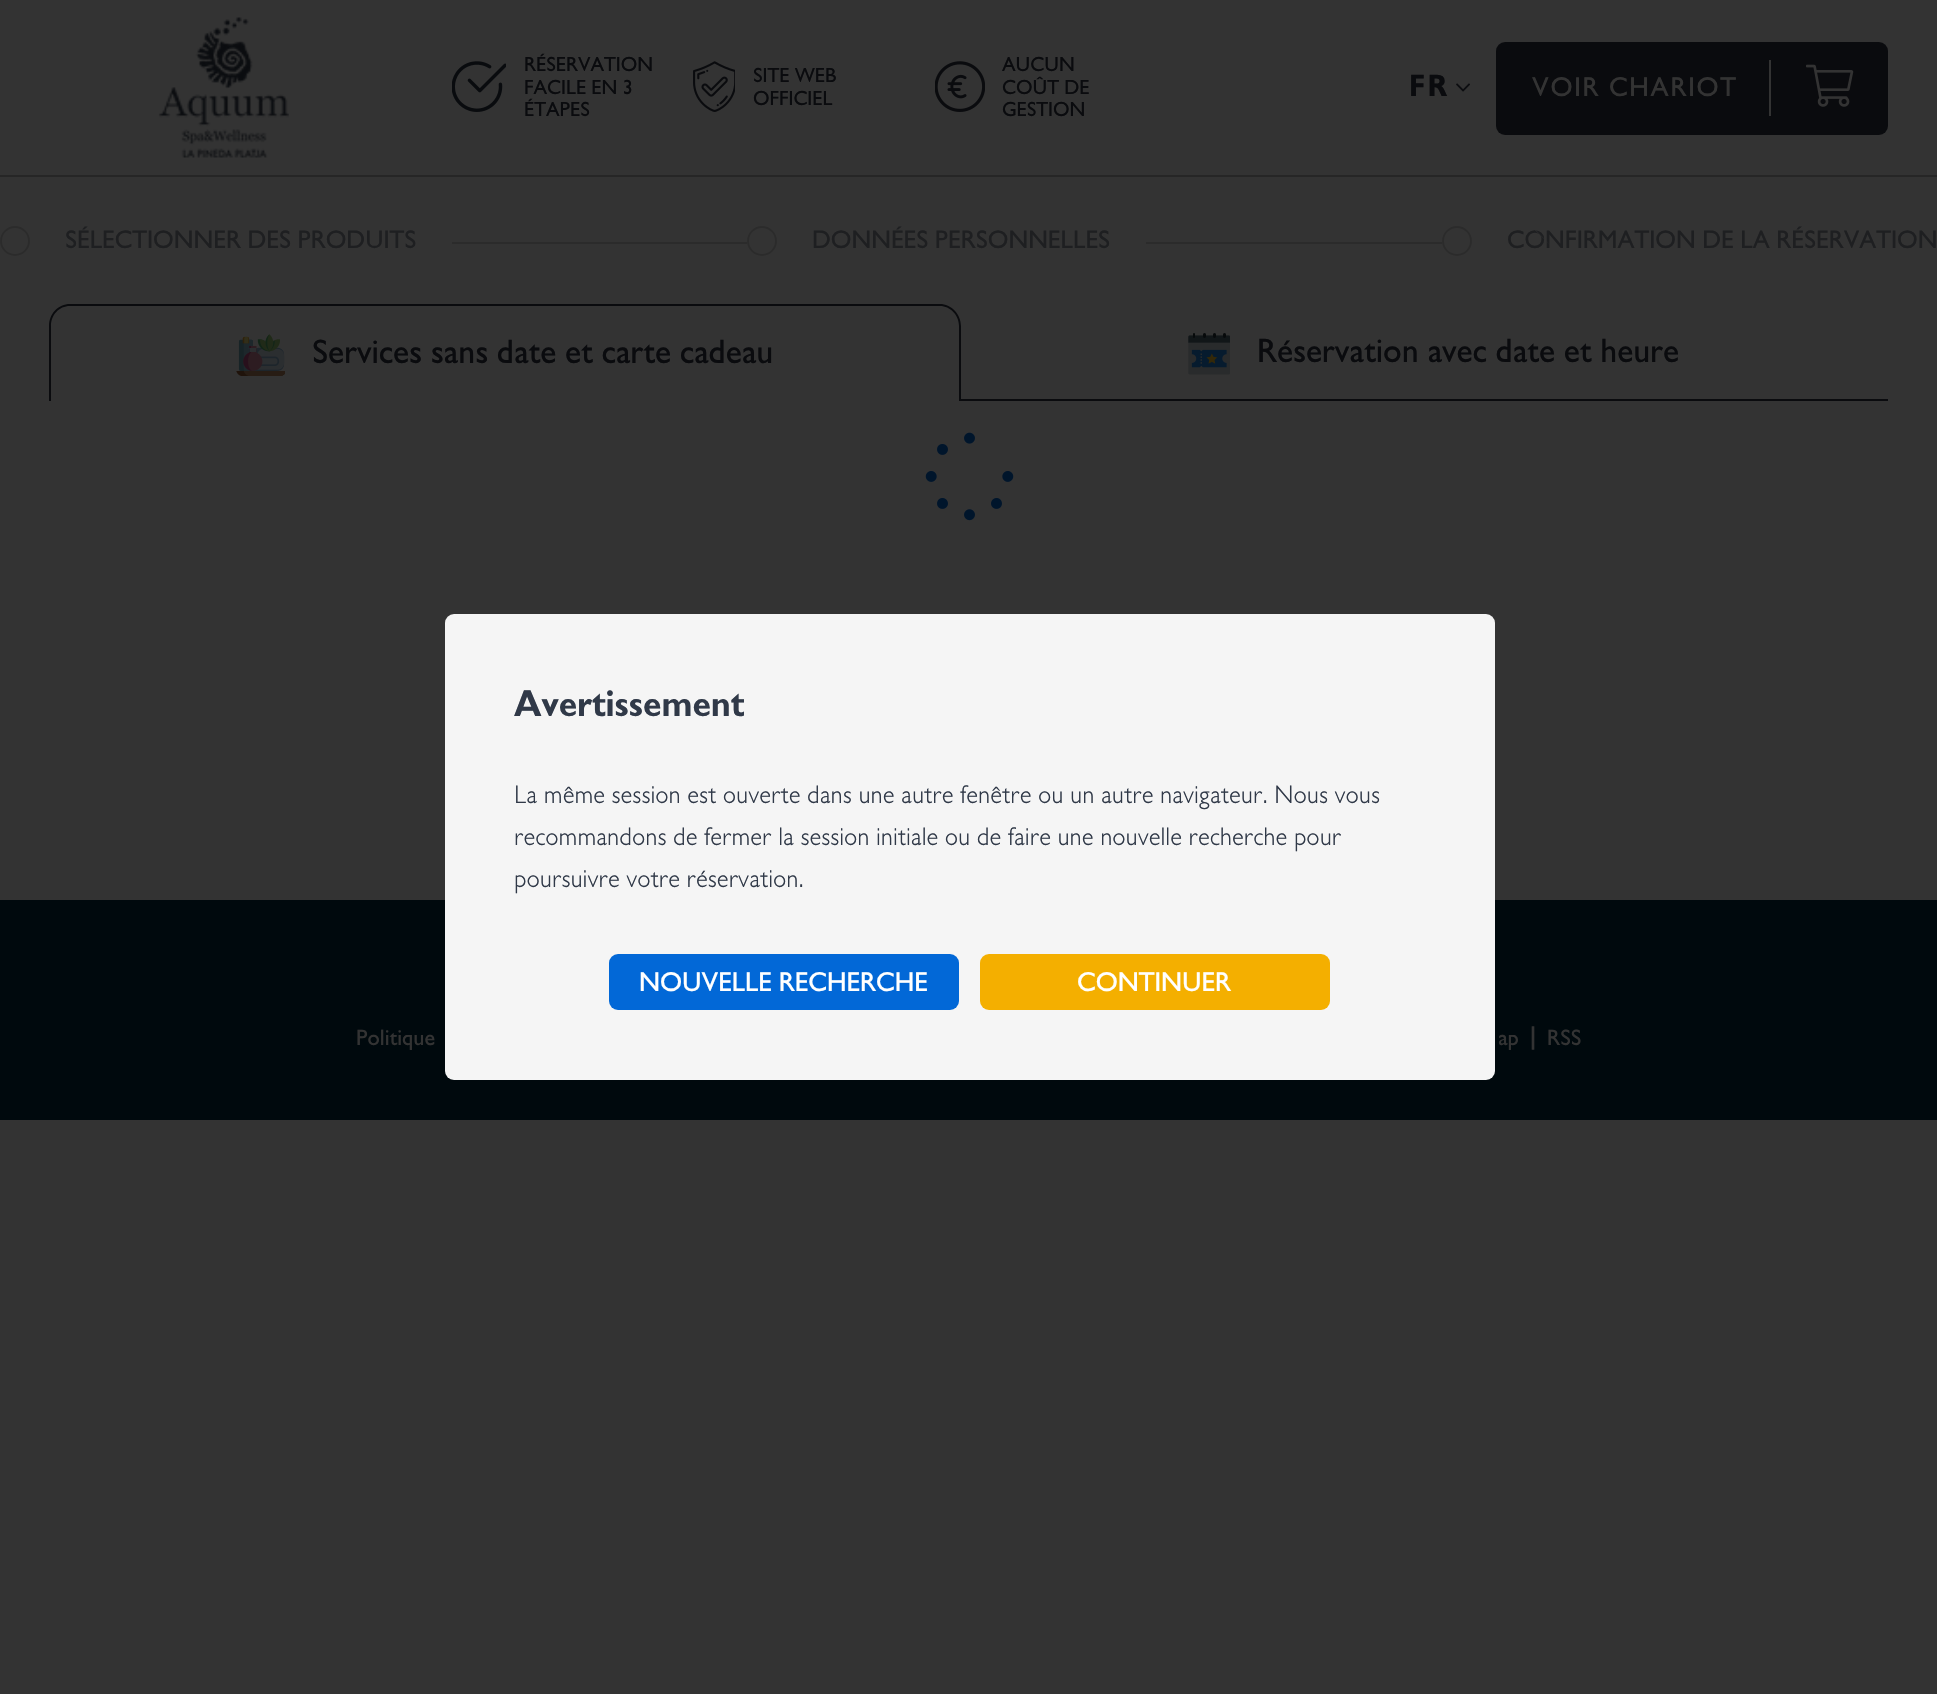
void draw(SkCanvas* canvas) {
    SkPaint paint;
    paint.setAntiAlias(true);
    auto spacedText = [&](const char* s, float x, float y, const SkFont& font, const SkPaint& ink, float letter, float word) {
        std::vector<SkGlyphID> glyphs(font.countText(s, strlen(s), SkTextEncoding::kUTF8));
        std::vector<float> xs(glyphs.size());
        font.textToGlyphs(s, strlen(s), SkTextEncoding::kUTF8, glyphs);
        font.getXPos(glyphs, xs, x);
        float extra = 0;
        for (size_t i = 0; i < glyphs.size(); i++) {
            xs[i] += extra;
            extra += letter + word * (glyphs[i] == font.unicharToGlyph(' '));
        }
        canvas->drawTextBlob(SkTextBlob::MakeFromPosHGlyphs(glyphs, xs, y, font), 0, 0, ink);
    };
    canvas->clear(0xFF333333);
    paint.setColor(0xFF262626);
    canvas->drawRect(SkRect::MakeXYWH(0, 175, 1937, 2), paint);
    canvas->drawImageRect(SkImages::DeferredFromEncodedData(SkData::MakeFromFileName("img1.png")), SkRect::MakeXYWH(158, 17, 131, 141), SkSamplingOptions());
    canvas->drawImageRect(SkImages::DeferredFromEncodedData(SkData::MakeFromFileName("img2.png")), SkRect::MakeXYWH(452, 61, 54, 51), SkSamplingOptions());
    SkFont font1(fontMgr->matchFamilyStyle("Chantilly", SkFontStyle::Normal()), 21);
    font1.setSubpixel(true);
    paint.setColor(0xFF0A0B0E);
    canvas->drawString("RÉSERVATION", 524, 71, font1, paint);
    canvas->drawString("FACILE EN 3", 524, 94, font1, paint);
    canvas->drawString("ÉTAPES", 524, 116, font1, paint);
    canvas->drawImageRect(SkImages::DeferredFromEncodedData(SkData::MakeFromFileName("img3.png")), SkRect::MakeXYWH(693, 61, 42, 51), SkSamplingOptions());
    canvas->drawString("SITE WEB", 753, 82, font1, paint);
    canvas->drawString("OFFICIEL", 753, 105, font1, paint);
    canvas->drawImageRect(SkImages::DeferredFromEncodedData(SkData::MakeFromFileName("img4.png")), SkRect::MakeXYWH(935, 61, 50, 51), SkSamplingOptions());
    canvas->drawString("AUCUN", 1002, 71, font1, paint);
    canvas->drawString("COÛT DE", 1002, 94, font1, paint);
    canvas->drawString("GESTION", 1002, 116, font1, paint);
    SkFont font2(fontMgr->matchFamilyStyle("Chantilly", SkFontStyle::Bold()), 32);
    font2.setSubpixel(true);
    spacedText("FR", 1409, 96, font2, paint, 3, 0);
    canvas->drawImageRect(SkImages::DeferredFromEncodedData(SkData::MakeFromFileName("img5.png")), SkRect::MakeXYWH(1456, 83, 14, 9), SkSamplingOptions());
    canvas->drawRoundRect(SkRect::MakeXYWH(1496, 42, 392, 93), 9, 9, paint);
    SkFont font3(fontMgr->matchFamilyStyle("Chantilly", SkFontStyle::Normal()), 28);
    font3.setSubpixel(true);
    paint.setColor(0xFF333333);
    spacedText("VOIR CHARIOT", 1532, 96, font3, paint, 1.75f, 0);
    canvas->drawRect(SkRect::MakeXYWH(1769, 60, 2, 56), paint);
    canvas->drawImageRect(SkImages::DeferredFromEncodedData(SkData::MakeFromFileName("img6.png")), SkRect::MakeXYWH(1806, 64, 48, 43), SkSamplingOptions());
    SkFont font4(fontMgr->matchFamilyStyle("Chantilly", SkFontStyle::Normal()), 26.25f);
    font4.setSubpixel(true);
    paint.setColor(0xFF1E1F21);
    canvas->drawString("CONFIRMATION DE LA RÉSERVATION", 1507, 248, font4, paint);
    paint.setColor(0xFF333333);
    canvas->drawPath(SkPathBuilder(SkPathFillType::kEvenOdd).moveTo(1559, 201).lineTo(1577, 220).lineTo(1551, 246).lineTo(1525, 220).lineTo(1544, 201).cubicTo(1548, 197, 1555, 197, 1559, 201).close().moveTo(1558, 202).lineTo(1576, 221).lineTo(1551, 246).lineTo(1527, 221).lineTo(1545, 202).cubicTo(1549, 199, 1554, 199, 1558, 202).close().detach(), paint);
    SkFont font5(fontMgr->matchFamilyStyle("Chantilly", SkFontStyle::Bold()), 52.5f);
    font5.setSubpixel(true);
    spacedText("ACHETER", 1443, 391, font5, paint, 3.25f, 0);
    paint.setStyle(SkPaint::kStroke_Style);
    paint.setStrokeWidth(2);
    paint.setColor(0xFF2B2B2B);
    canvas->drawCircle(15, 241, 14, paint);
    paint.setStyle(SkPaint::kFill_Style);
    paint.setColor(0xFF1E1F21);
    canvas->drawString("SÉLECTIONNER DES PRODUITS", 65, 248, font4, paint);
    paint.setColor(0xFF2B2B2B);
    canvas->drawRect(SkRect::MakeXYWH(452, 242, 990, 2), paint);
    paint.setColor(0xFF333333);
    canvas->drawRect(SkRect::MakeXYWH(747, 242, 399, 2), paint);
    paint.setStyle(SkPaint::kStroke_Style);
    paint.setColor(0xFF2B2B2B);
    canvas->drawCircle(762, 241, 14, paint);
    paint.setStyle(SkPaint::kFill_Style);
    paint.setColor(0xFF1E1F21);
    canvas->drawString("DONNÉES PERSONNELLES", 812, 248, font4, paint);
    paint.setStyle(SkPaint::kStroke_Style);
    paint.setColor(0xFF2B2B2B);
    canvas->drawCircle(1457, 241, 14, paint);
    paint.setStyle(SkPaint::kFill_Style);
    paint.setColor(0xFF0A0B0E);
    canvas->drawPath(SkPathBuilder(SkPathFillType::kEvenOdd).moveTo(70, 304).lineTo(940, 304).cubicTo(951, 304, 961, 314, 961, 326).lineTo(961, 401).lineTo(49, 401).lineTo(49, 326).cubicTo(49, 314, 58, 304, 70, 304).close().moveTo(70, 306).lineTo(940, 306).cubicTo(950, 306, 959, 315, 959, 326).lineTo(959, 401).lineTo(51, 401).lineTo(51, 326).cubicTo(51, 315, 59, 306, 70, 306).close().detach(), paint);
    canvas->drawImageRect(SkImages::DeferredFromEncodedData(SkData::MakeFromFileName("img7.png")), SkRect::MakeXYWH(236, 334, 49, 42), SkSamplingOptions());
    SkFont font6(fontMgr->matchFamilyStyle("Chantilly", SkFontStyle::Normal()), 35);
    font6.setSubpixel(true);
    canvas->drawString("Services sans date et carte cadeau", 312, 363, font6, paint);
    canvas->drawRect(SkRect::MakeXYWH(959, 399, 929, 2), paint);
    canvas->drawImageRect(SkImages::DeferredFromEncodedData(SkData::MakeFromFileName("img8.png")), SkRect::MakeXYWH(1188, 333, 42, 42), SkSamplingOptions());
    canvas->drawString("Réservation avec date et heure", 1257, 362, font6, paint);
    canvas->drawImageRect(SkImages::DeferredFromEncodedData(SkData::MakeFromFileName("img9.png")), SkRect::MakeXYWH(925, 432, 89, 89), SkSamplingOptions());
    paint.setColor(0xFF00090D);
    canvas->drawRect(SkRect::MakeXYWH(0, 900, 1937, 220), paint);
    paint.setColor(0xFFF5F5F5);
    canvas->drawRoundRect(SkRect::MakeXYWH(445, 614, 1050, 466), 9, 9, paint);
    SkFont font7(fontMgr->matchFamilyStyle("Chantilly", SkFontStyle::Bold()), 38.5f);
    font7.setSubpixel(true);
    paint.setColor(0xFF303948);
    canvas->drawString("Avertissement", 514, 716, font7, paint);
    SkFont font8(fontMgr->matchFamilyStyle("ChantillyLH", SkFontStyle(300, SkFontStyle::kNormal_Width, SkFontStyle::kUpright_Slant)), 26.25f);
    font8.setSubpixel(true);
    canvas->drawString("La même session est ouverte dans une autre fenêtre ou un autre navigateur. Nous vous", 514, 803, font8, paint);
    canvas->drawString("recommandons de fermer la session initiale ou de faire une nouvelle recherche pour", 514, 845, font8, paint);
    canvas->drawString("poursuivre votre réservation.", 514, 887, font8, paint);
    paint.setColor(0xFF0268D7);
    canvas->drawRoundRect(SkRect::MakeXYWH(609, 954, 350, 56), 9, 9, paint);
    paint.setColor(0xFFFFFFFF);
    canvas->drawString("NOUVELLE RECHERCHE", 639, 991, font3, paint);
    paint.setColor(0xFFF4AF00);
    canvas->drawRoundRect(SkRect::MakeXYWH(980, 954, 350, 56), 9, 9, paint);
    paint.setColor(0xFFFFFFFF);
    canvas->drawString("CONTINUER", 1077, 991, font3, paint);
    SkFont font9(fontMgr->matchFamilyStyle("Chantilly", SkFontStyle::Normal()), 23);
    font9.setSubpixel(true);
    paint.setColor(0xFF333333);
    canvas->drawString("Politique", 356, 1045, font9, paint);
    canvas->drawString("ap", 1498, 1045, font9, paint);
    canvas->drawString("|", 1526, 1045, font3, paint);
    canvas->drawString("RSS", 1547, 1045, font9, paint);
}
